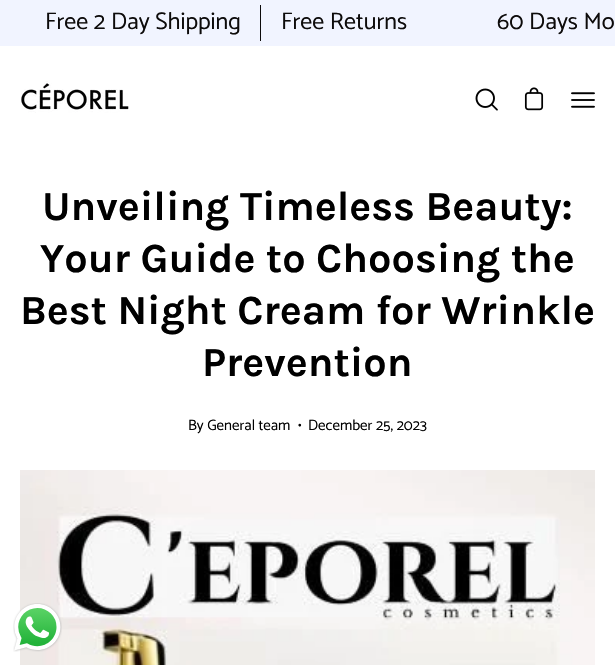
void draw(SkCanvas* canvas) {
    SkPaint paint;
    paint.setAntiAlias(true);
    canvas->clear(0xFFFFFFFF);
    paint.setColor(0xFFF1F4FF);
    canvas->drawRect(SkRect::MakeXYWH(0, 0, 615, 46), paint);
    SkFont font1(fontMgr->matchFamilyStyle("Catamaran", SkFontStyle::Normal()), 24);
    font1.setSubpixel(true);
    paint.setColor(0xFF0D0B0B);
    canvas->drawString("Free 2 Day Shipping", 45, 29, font1, paint);
    canvas->drawRect(SkRect::MakeXYWH(260, 5, 1, 36), paint);
    canvas->drawString("Free Returns", 281, 29, font1, paint);
    canvas->drawString("60 Days Mo", 497, 29, font1, paint);
    canvas->drawImageRect(SkImages::DeferredFromEncodedData(SkData::MakeFromFileName("img1.png")), SkRect::MakeXYWH(21, 81, 108, 32), SkSamplingOptions());
    canvas->drawImageRect(SkImages::DeferredFromEncodedData(SkData::MakeFromFileName("img2.png")), SkRect::MakeXYWH(475, 88, 23, 23), SkSamplingOptions());
    canvas->drawImageRect(SkImages::DeferredFromEncodedData(SkData::MakeFromFileName("img3.png")), SkRect::MakeXYWH(524, 87, 20, 24), SkSamplingOptions());
    canvas->drawImageRect(SkImages::DeferredFromEncodedData(SkData::MakeFromFileName("img4.png")), SkRect::MakeXYWH(571, 92, 24, 16), SkSamplingOptions());
    SkFont font2(fontMgr->matchFamilyStyle("Karla", SkFontStyle::Bold()), 41.4f);
    font2.setSubpixel(true);
    paint.setColor(0xFF000000);
    canvas->drawString("Unveiling Timeless Beauty:", 42, 220, font2, paint);
    canvas->drawString("Your Guide to Choosing the", 40, 272, font2, paint);
    canvas->drawString("Best Night Cream for Wrinkle", 20, 324, font2, paint);
    canvas->drawString("Prevention", 202, 376, font2, paint);
    SkFont font3(fontMgr->matchFamilyStyle("Catamaran", SkFontStyle::Normal()), 15);
    font3.setSubpixel(true);
    canvas->drawString("By General team", 188, 430, font3, paint);
    canvas->drawString("•", 298, 430, font3, paint);
    canvas->drawString("December 25, 2023", 308, 430, font3, paint);
    canvas->drawImageRect(SkImages::DeferredFromEncodedData(SkData::MakeFromFileName("img5.png")), SkRect::MakeXYWH(20, 470, 575, 195), SkSamplingOptions());
    canvas->drawImageRect(SkImages::DeferredFromEncodedData(SkData::MakeFromFileName("img6.png")), SkRect::MakeXYWH(13, 603, 49, 49), SkSamplingOptions());
}
